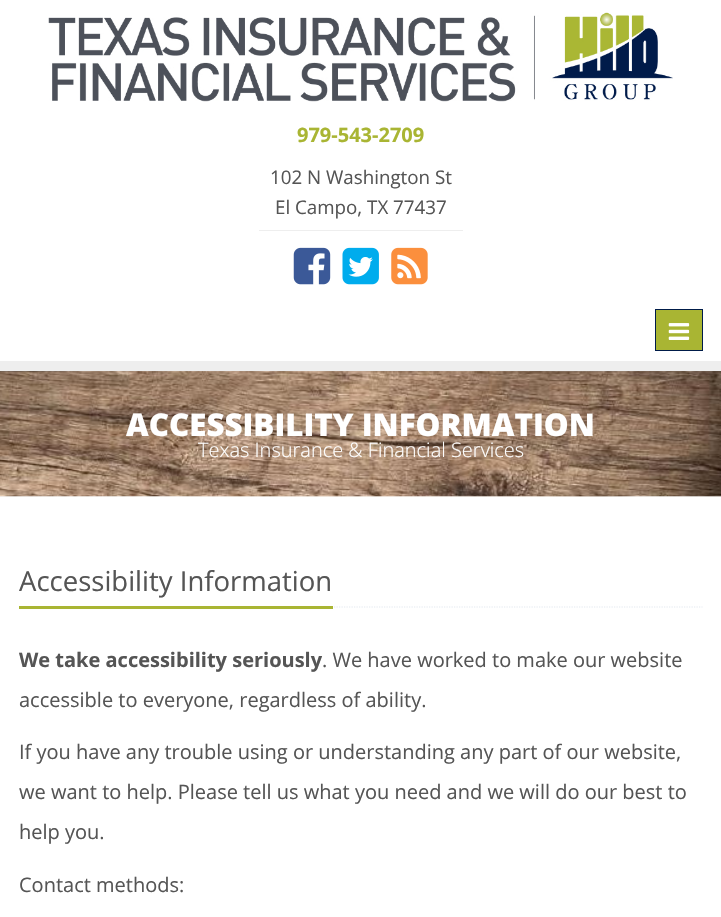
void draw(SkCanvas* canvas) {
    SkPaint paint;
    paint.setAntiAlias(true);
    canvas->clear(0xFFFFFFFF);
    paint.setColor(0xFFEEEEEE);
    canvas->drawRect(SkRect::MakeXYWH(0, 361, 721, 10), paint);
    canvas->drawImageRect(SkImages::DeferredFromEncodedData(SkData::MakeFromFileName("img1.png")), SkRect::MakeXYWH(48, 12, 625, 90), SkSamplingOptions());
    canvas->drawRect(SkRect::MakeXYWH(259, 230, 204, 1), paint);
    SkFont font1(fontMgr->matchFamilyStyle("Open Sans", SkFontStyle::Bold()), 20);
    font1.setSubpixel(true);
    paint.setColor(0xFFA9B533);
    canvas->drawString("979-543-2709", 297, 142, font1, paint);
    SkFont font2(fontMgr->matchFamilyStyle("Open Sans", SkFontStyle::Normal()), 18.75f);
    font2.setSubpixel(true);
    paint.setColor(0xFF555555);
    canvas->drawString("102 N Washington St", 270, 184, font2, paint);
    canvas->drawString("El Campo, TX 77437", 275, 214, font2, paint);
    canvas->drawImageRect(SkImages::DeferredFromEncodedData(SkData::MakeFromFileName("img2.png")), SkRect::MakeXYWH(293, 247, 38, 38), SkSamplingOptions());
    canvas->drawImageRect(SkImages::DeferredFromEncodedData(SkData::MakeFromFileName("img3.png")), SkRect::MakeXYWH(342, 247, 37, 38), SkSamplingOptions());
    canvas->drawImageRect(SkImages::DeferredFromEncodedData(SkData::MakeFromFileName("img4.png")), SkRect::MakeXYWH(391, 247, 37, 38), SkSamplingOptions());
    paint.setColor(0xFFA9B533);
    canvas->drawRect(SkRect::MakeXYWH(655.5f, 309.5f, 47, 41), paint);
    paint.setStyle(SkPaint::kStroke_Style);
    paint.setStrokeWidth(1);
    paint.setColor(0xFF001B49);
    canvas->drawRect(SkRect::MakeXYWH(655.5f, 309.5f, 47, 41), paint);
    canvas->drawImageRect(SkImages::DeferredFromEncodedData(SkData::MakeFromFileName("img5.png")), SkRect::MakeXYWH(668, 323, 22, 17), SkSamplingOptions());
    canvas->drawImageRect(SkImages::DeferredFromEncodedData(SkData::MakeFromFileName("img6.png")), SkRect::MakeXYWH(0, 371, 721, 126), SkSamplingOptions());
    SkFont font3(fontMgr->matchFamilyStyle("Open Sans", SkFontStyle(800, SkFontStyle::kNormal_Width, SkFontStyle::kUpright_Slant)), 31.25f);
    font3.setSubpixel(true);
    paint.setStyle(SkPaint::kFill_Style);
    paint.setColor(0xFFFFFFFF);
    canvas->drawString("ACCESSIBILITY INFORMATION", 126, 436, font3, paint);
    SkFont font4(fontMgr->matchFamilyStyle("Open Sans", SkFontStyle(300, SkFontStyle::kNormal_Width, SkFontStyle::kUpright_Slant)), 20);
    font4.setSubpixel(true);
    canvas->drawString("Texas Insurance & Financial Services", 198, 457, font4, paint);
    paint.setStyle(SkPaint::kStroke_Style);
    paint.setStrokeWidth(1.2f);
    paint.setColor(0xFFE4E9F0);
    paint.setPathEffect(SkDashPathEffect::Make({{1.25f, 1.25f}}, 0));
    canvas->drawPath(SkPathBuilder().moveTo(19, 607).lineTo(702.5f, 607).detach(), paint);
    paint.setPathEffect(nullptr);
    paint.setStyle(SkPaint::kFill_Style);
    paint.setColor(0xFFA9B533);
    canvas->drawRect(SkRect::MakeXYWH(19, 606, 314, 3), paint);
    SkFont font5(fontMgr->matchFamilyStyle("Open Sans", SkFontStyle::Normal()), 27.5f);
    font5.setSubpixel(true);
    paint.setColor(0xFF555555);
    canvas->drawString("Accessibility Information", 19, 591, font5, paint);
    canvas->drawString("We take accessibility seriously", 19, 667, font1, paint);
    SkFont font6(fontMgr->matchFamilyStyle("Open Sans", SkFontStyle::Normal()), 20);
    font6.setSubpixel(true);
    canvas->drawString(". We have worked to make our website", 322, 667, font6, paint);
    canvas->drawString("accessible to everyone, regardless of ability.", 19, 707, font6, paint);
    canvas->drawString("If you have any trouble using or understanding any part of our website,", 19, 759, font6, paint);
    canvas->drawString("we want to help. Please tell us what you need and we will do our best to", 19, 799, font6, paint);
    canvas->drawString("help you.", 19, 839, font6, paint);
    canvas->drawString("Contact methods:", 19, 892, font6, paint);
}
